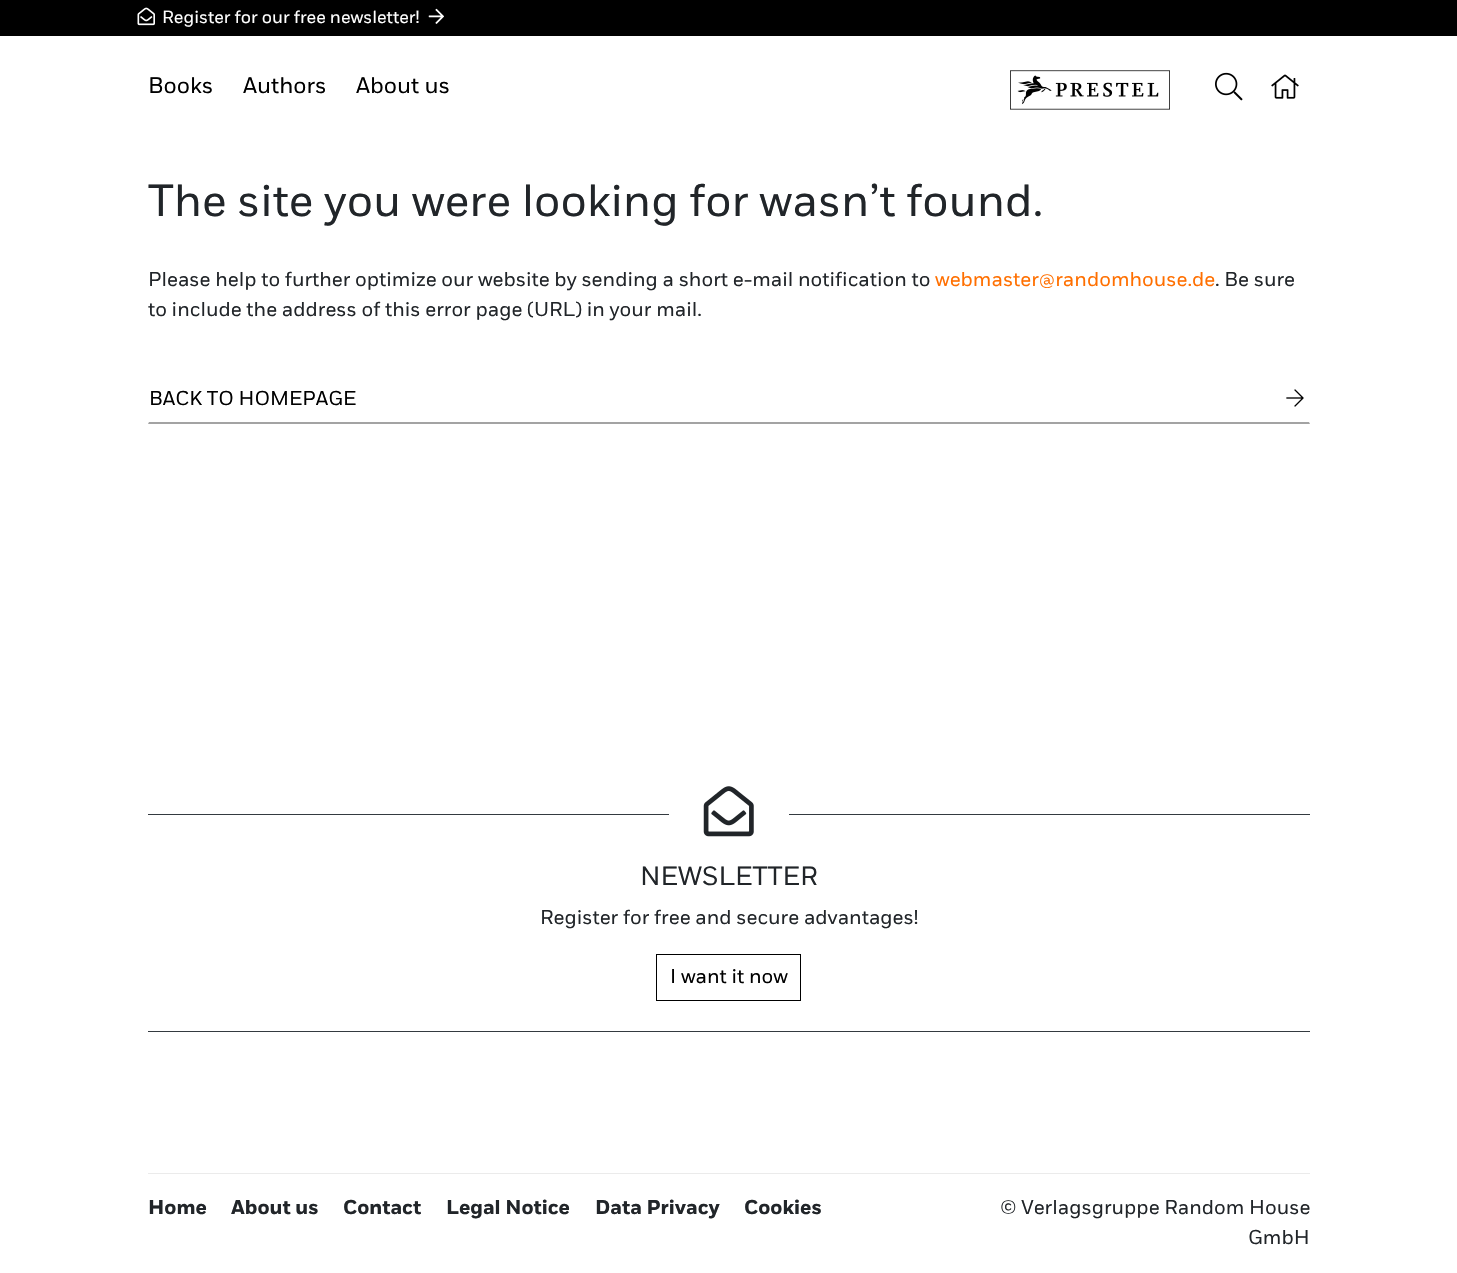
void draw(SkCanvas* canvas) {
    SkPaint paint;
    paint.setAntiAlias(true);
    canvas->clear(0xFFFFFFFF);
    paint.setColor(0xFF000000);
    canvas->drawRect(SkRect::MakeXYWH(0, 0, 1457, 36), paint);
    canvas->drawImageRect(SkImages::DeferredFromEncodedData(SkData::MakeFromFileName("img1.png")), SkRect::MakeXYWH(137, 7, 18, 19), SkSamplingOptions());
    SkFont font1(fontMgr->matchFamilyStyle("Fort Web", SkFontStyle::Normal()), 17.5f);
    font1.setSubpixel(true);
    paint.setColor(0xFFFFFFFF);
    canvas->drawString("Register for our free newsletter!", 162, 23, font1, paint);
    canvas->drawImageRect(SkImages::DeferredFromEncodedData(SkData::MakeFromFileName("img2.png")), SkRect::MakeXYWH(428, 8, 16, 16), SkSamplingOptions());
    SkFont font2(fontMgr->matchFamilyStyle("Fort Web", SkFontStyle::Normal()), 22.5f);
    font2.setSubpixel(true);
    paint.setColor(0xFF000000);
    canvas->drawString("Books", 148, 93, font2, paint);
    canvas->drawString("Authors", 243, 93, font2, paint);
    canvas->drawString("About us", 356, 93, font2, paint);
    canvas->drawImageRect(SkImages::DeferredFromEncodedData(SkData::MakeFromFileName("img3.png")), SkRect::MakeXYWH(1010, 70, 160, 40), SkSamplingOptions());
    canvas->drawImageRect(SkImages::DeferredFromEncodedData(SkData::MakeFromFileName("img4.png")), SkRect::MakeXYWH(1215, 72, 28, 29), SkSamplingOptions());
    canvas->drawImageRect(SkImages::DeferredFromEncodedData(SkData::MakeFromFileName("img5.png")), SkRect::MakeXYWH(1271, 74, 28, 25), SkSamplingOptions());
    SkFont font3(fontMgr->matchFamilyStyle("Fort Web", SkFontStyle::Normal()), 45);
    font3.setSubpixel(true);
    paint.setColor(0xFF212529);
    canvas->drawString("The site you were looking for wasn’t found.", 148, 216, font3, paint);
    SkFont font4(fontMgr->matchFamilyStyle("Fort Web", SkFontStyle::Normal()), 20);
    font4.setSubpixel(true);
    canvas->drawString("Please help to further optimize our website by sending a short e-mail notification to", 148, 286, font4, paint);
    paint.setColor(0xFFFF6F00);
    canvas->drawString("webmaster@randomhouse.de", 935, 286, font4, paint);
    paint.setColor(0xFF212529);
    canvas->drawString(". Be sure", 1215, 286, font4, paint);
    canvas->drawString("to include the address of this error page (URL) in your mail.", 148, 316, font4, paint);
    paint.setColor(0xFFA3A3A3);
    canvas->drawPath(SkPathBuilder().moveTo(1310, 424).lineTo(148, 424).lineTo(149, 422).lineTo(1309, 422).close().detach(), paint);
    paint.setColor(0xFF000000);
    canvas->drawString("BACK TO HOMEPAGE", 149, 405, font4, paint);
    canvas->drawImageRect(SkImages::DeferredFromEncodedData(SkData::MakeFromFileName("img6.png")), SkRect::MakeXYWH(1286, 389, 18, 18), SkSamplingOptions());
    paint.setColor(0xFF343A40);
    canvas->drawRect(SkRect::MakeXYWH(148, 814, 1162, 1), paint);
    canvas->drawRect(SkRect::MakeXYWH(148, 1031, 1162, 1), paint);
    paint.setColor(0xFFFFFFFF);
    canvas->drawRect(SkRect::MakeXYWH(669, 814, 120, 1), paint);
    canvas->drawImageRect(SkImages::DeferredFromEncodedData(SkData::MakeFromFileName("img7.png")), SkRect::MakeXYWH(703, 786, 51, 51), SkSamplingOptions());
    SkFont font5(fontMgr->matchFamilyStyle("Fort Web", SkFontStyle::Normal()), 26.25f);
    font5.setSubpixel(true);
    paint.setColor(0xFF212529);
    canvas->drawString("NEWSLETTER", 640, 885, font5, paint);
    canvas->drawString("Register for free and secure advantages!", 540, 924, font4, paint);
    paint.setStyle(SkPaint::kStroke_Style);
    paint.setStrokeWidth(1);
    paint.setColor(0xFF000000);
    canvas->drawRect(SkRect::MakeXYWH(656.5f, 954.5f, 144, 46), paint);
    paint.setStyle(SkPaint::kFill_Style);
    canvas->drawString("I want it now", 670, 983, font4, paint);
    paint.setColor(0xFFEBEBEB);
    canvas->drawRect(SkRect::MakeXYWH(148, 1173, 1162, 1), paint);
    SkFont font6(fontMgr->matchFamilyStyle("Fort Web", SkFontStyle::Bold()), 20);
    font6.setSubpixel(true);
    paint.setColor(0xFF212529);
    canvas->drawString("Home", 148, 1214, font6, paint);
    canvas->drawString("About us", 231, 1214, font6, paint);
    canvas->drawString("Contact", 343, 1214, font6, paint);
    canvas->drawString("Legal Notice", 446, 1214, font6, paint);
    canvas->drawString("Data Privacy", 595, 1214, font6, paint);
    canvas->drawString("Cookies", 744, 1214, font6, paint);
    canvas->drawString("© Verlagsgruppe Random House", 1000, 1214, font4, paint);
    canvas->drawString("GmbH", 1248, 1244, font4, paint);
}
